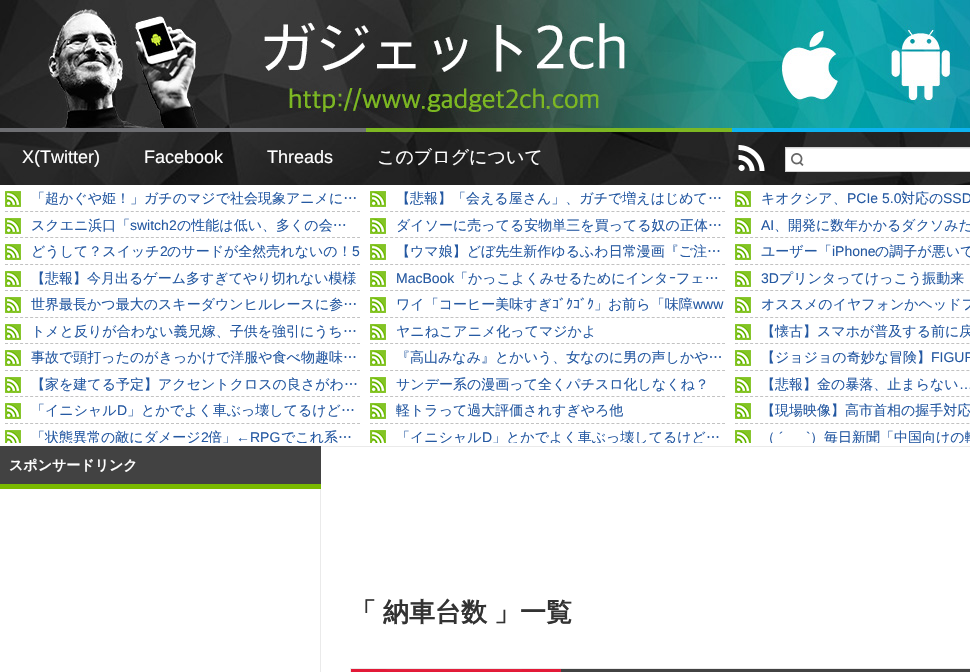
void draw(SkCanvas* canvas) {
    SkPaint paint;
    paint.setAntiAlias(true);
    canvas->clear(0xFFFFFFFF);
    canvas->drawImageRect(SkImages::DeferredFromEncodedData(SkData::MakeFromFileName("img1.png")), SkRect::MakeXYWH(0, 0, 970, 185), SkSamplingOptions());
    SkFont font1(fontMgr->matchFamilyStyle("Liberation Sans", SkFontStyle::Normal()), 18);
    font1.setSubpixel(true);
    paint.setColor(0xFFFFFFFF);
    canvas->drawString("X(Twitter)", 22, 163, font1, paint);
    canvas->drawString("Facebook", 144, 163, font1, paint);
    canvas->drawString("Threads", 267, 163, font1, paint);
    SkFont font2(fontMgr->matchFamilyStyle("WenQuanYi Zen Hei", SkFontStyle(500, SkFontStyle::kNormal_Width, SkFontStyle::kUpright_Slant)), 18);
    font2.setSubpixel(true);
    canvas->drawString("このブログについて", 377, 163, font2, paint);
    canvas->drawImageRect(SkImages::DeferredFromEncodedData(SkData::MakeFromFileName("img2.png")), SkRect::MakeXYWH(738, 145, 27, 26), SkSamplingOptions());
    canvas->drawRect(SkRect::MakeXYWH(786, 149, 184, 22), paint);
    canvas->drawImageRect(SkImages::DeferredFromEncodedData(SkData::MakeFromFileName("img3.png")), SkRect::MakeXYWH(791, 153, 13, 13), SkSamplingOptions());
    paint.setColor(0xFFECECEC);
    canvas->drawRect(SkRect::MakeXYWH(786, 148, 184, 1), paint);
    paint.setStyle(SkPaint::kStroke_Style);
    paint.setStrokeWidth(1);
    paint.setColor(0xFFD1D1D1);
    canvas->drawRect(SkRect::MakeXYWH(785.5f, 147.5f, 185, 24), paint);
    paint.setStyle(SkPaint::kFill_Style);
    paint.setColor(0xFFEAEAEA);
    canvas->drawRect(SkRect::MakeXYWH(321, 446, 649, 1), paint);
    paint.setStyle(SkPaint::kStroke_Style);
    paint.setColor(0xFFC2C2C2);
    paint.setPathEffect(SkDashPathEffect::Make({{3, 2.03f}}, 0));
    canvas->drawPath(SkPathBuilder().moveTo(5, 211.5f).lineTo(360, 211.5f).detach(), paint);
    paint.setPathEffect(nullptr);
    canvas->drawImageRect(SkImages::DeferredFromEncodedData(SkData::MakeFromFileName("img4.png")), SkRect::MakeXYWH(5, 191, 16, 16), SkSamplingOptions());
    SkFont font3(fontMgr->matchFamilyStyle("WenQuanYi Zen Hei", SkFontStyle(500, SkFontStyle::kNormal_Width, SkFontStyle::kUpright_Slant)), 14);
    font3.setSubpixel(true);
    paint.setStyle(SkPaint::kFill_Style);
    paint.setColor(0xFF2559A2);
    canvas->drawString("「超かぐや姫！」ガチのマジで社会現象アニメに…", 31, 203, font3, paint);
    paint.setStyle(SkPaint::kStroke_Style);
    paint.setColor(0xFFC2C2C2);
    paint.setPathEffect(SkDashPathEffect::Make({{3, 2.03f}}, 0));
    canvas->drawPath(SkPathBuilder().moveTo(5, 237.5f).lineTo(360, 237.5f).detach(), paint);
    paint.setPathEffect(nullptr);
    canvas->drawImageRect(SkImages::DeferredFromEncodedData(SkData::MakeFromFileName("img4.png")), SkRect::MakeXYWH(5, 218, 16, 16), SkSamplingOptions());
    paint.setStyle(SkPaint::kFill_Style);
    paint.setColor(0xFF2559A2);
    canvas->drawString("スクエニ浜口「", 31, 230, font3, paint);
    SkFont font4(fontMgr->matchFamilyStyle("Liberation Sans", SkFontStyle::Normal()), 14);
    font4.setSubpixel(true);
    canvas->drawString("switch2", 130, 230, font4, paint);
    canvas->drawString("の性能は低い、多くの会…", 177, 230, font3, paint);
    paint.setStyle(SkPaint::kStroke_Style);
    paint.setColor(0xFFC2C2C2);
    paint.setPathEffect(SkDashPathEffect::Make({{3, 2.03f}}, 0));
    canvas->drawPath(SkPathBuilder().moveTo(5, 264.5f).lineTo(360, 264.5f).detach(), paint);
    paint.setPathEffect(nullptr);
    canvas->drawImageRect(SkImages::DeferredFromEncodedData(SkData::MakeFromFileName("img4.png")), SkRect::MakeXYWH(5, 244, 16, 16), SkSamplingOptions());
    paint.setStyle(SkPaint::kFill_Style);
    paint.setColor(0xFF2559A2);
    canvas->drawString("どうして？スイッチ", 31, 256, font3, paint);
    canvas->drawString("2", 160, 256, font4, paint);
    canvas->drawString("のサードが全然売れないの！", 167, 256, font3, paint);
    canvas->drawString("5", 352, 256, font4, paint);
    paint.setStyle(SkPaint::kStroke_Style);
    paint.setColor(0xFFC2C2C2);
    paint.setPathEffect(SkDashPathEffect::Make({{3, 2.03f}}, 0));
    canvas->drawPath(SkPathBuilder().moveTo(5, 290.5f).lineTo(360, 290.5f).detach(), paint);
    paint.setPathEffect(nullptr);
    canvas->drawImageRect(SkImages::DeferredFromEncodedData(SkData::MakeFromFileName("img4.png")), SkRect::MakeXYWH(5, 271, 16, 16), SkSamplingOptions());
    paint.setStyle(SkPaint::kFill_Style);
    paint.setColor(0xFF2559A2);
    canvas->drawString("【悲報】今月出るゲーム多すぎてやり切れない模様", 31, 283, font3, paint);
    paint.setStyle(SkPaint::kStroke_Style);
    paint.setColor(0xFFC2C2C2);
    paint.setPathEffect(SkDashPathEffect::Make({{3, 2.03f}}, 0));
    canvas->drawPath(SkPathBuilder().moveTo(5, 317.5f).lineTo(360, 317.5f).detach(), paint);
    paint.setPathEffect(nullptr);
    canvas->drawImageRect(SkImages::DeferredFromEncodedData(SkData::MakeFromFileName("img4.png")), SkRect::MakeXYWH(5, 297, 16, 16), SkSamplingOptions());
    paint.setStyle(SkPaint::kFill_Style);
    paint.setColor(0xFF2559A2);
    canvas->drawString("世界最長かつ最大のスキーダウンヒルレースに参…", 31, 309, font3, paint);
    paint.setStyle(SkPaint::kStroke_Style);
    paint.setColor(0xFFC2C2C2);
    paint.setPathEffect(SkDashPathEffect::Make({{3, 2.03f}}, 0));
    canvas->drawPath(SkPathBuilder().moveTo(5, 343.5f).lineTo(360, 343.5f).detach(), paint);
    paint.setPathEffect(nullptr);
    canvas->drawImageRect(SkImages::DeferredFromEncodedData(SkData::MakeFromFileName("img4.png")), SkRect::MakeXYWH(5, 324, 16, 16), SkSamplingOptions());
    paint.setStyle(SkPaint::kFill_Style);
    paint.setColor(0xFF2559A2);
    canvas->drawString("トメと反りが合わない義兄嫁、子供を強引にうち…", 31, 336, font3, paint);
    paint.setStyle(SkPaint::kStroke_Style);
    paint.setColor(0xFFC2C2C2);
    paint.setPathEffect(SkDashPathEffect::Make({{3, 2.03f}}, 0));
    canvas->drawPath(SkPathBuilder().moveTo(5, 370.5f).lineTo(360, 370.5f).detach(), paint);
    paint.setPathEffect(nullptr);
    canvas->drawImageRect(SkImages::DeferredFromEncodedData(SkData::MakeFromFileName("img4.png")), SkRect::MakeXYWH(5, 350, 16, 16), SkSamplingOptions());
    paint.setStyle(SkPaint::kFill_Style);
    paint.setColor(0xFF2559A2);
    canvas->drawString("事故で頭打ったのがきっかけで洋服や食べ物趣味…", 31, 362, font3, paint);
    paint.setStyle(SkPaint::kStroke_Style);
    paint.setColor(0xFFC2C2C2);
    paint.setPathEffect(SkDashPathEffect::Make({{3, 2.03f}}, 0));
    canvas->drawPath(SkPathBuilder().moveTo(5, 396.5f).lineTo(360, 396.5f).detach(), paint);
    paint.setPathEffect(nullptr);
    canvas->drawImageRect(SkImages::DeferredFromEncodedData(SkData::MakeFromFileName("img4.png")), SkRect::MakeXYWH(5, 377, 16, 16), SkSamplingOptions());
    paint.setStyle(SkPaint::kFill_Style);
    paint.setColor(0xFF2559A2);
    canvas->drawString("【家を建てる予定】アクセントクロスの良さがわ…", 31, 389, font3, paint);
    paint.setStyle(SkPaint::kStroke_Style);
    paint.setColor(0xFFC2C2C2);
    paint.setPathEffect(SkDashPathEffect::Make({{3, 2.03f}}, 0));
    canvas->drawPath(SkPathBuilder().moveTo(5, 423.5f).lineTo(360, 423.5f).detach(), paint);
    paint.setPathEffect(nullptr);
    canvas->drawImageRect(SkImages::DeferredFromEncodedData(SkData::MakeFromFileName("img4.png")), SkRect::MakeXYWH(5, 403, 16, 16), SkSamplingOptions());
    paint.setStyle(SkPaint::kFill_Style);
    paint.setColor(0xFF2559A2);
    canvas->drawString("「イニシャル", 31, 415, font3, paint);
    canvas->drawString("D", 117, 415, font4, paint);
    canvas->drawString("」とかでよく車ぶっ壊してるけど…", 127, 415, font3, paint);
    canvas->drawImageRect(SkImages::DeferredFromEncodedData(SkData::MakeFromFileName("img5.png")), SkRect::MakeXYWH(5, 430, 16, 13), SkSamplingOptions());
    canvas->save();
    canvas->clipRect(SkRect::MakeXYWH(5, 427, 355, 16));
    canvas->drawString("「状態異常の敵にダメージ", 31, 442, font3, paint);
    canvas->restore();
    canvas->drawString("2", 201, 442, font4, paint);
    canvas->save();
    canvas->clipRect(SkRect::MakeXYWH(5, 427, 355, 16));
    canvas->drawString("倍」", 208, 442, font3, paint);
    canvas->restore();
    canvas->drawString("←RPG", 236, 442, font4, paint);
    canvas->save();
    canvas->clipRect(SkRect::MakeXYWH(5, 427, 355, 16));
    canvas->drawString("でこれ系…", 281, 442, font3, paint);
    canvas->restore();
    paint.setStyle(SkPaint::kStroke_Style);
    paint.setColor(0xFFC2C2C2);
    paint.setPathEffect(SkDashPathEffect::Make({{3, 2.03f}}, 0));
    canvas->drawPath(SkPathBuilder().moveTo(370, 211.5f).lineTo(725, 211.5f).detach(), paint);
    paint.setPathEffect(nullptr);
    canvas->drawImageRect(SkImages::DeferredFromEncodedData(SkData::MakeFromFileName("img4.png")), SkRect::MakeXYWH(370, 191, 16, 16), SkSamplingOptions());
    paint.setStyle(SkPaint::kFill_Style);
    paint.setColor(0xFF2559A2);
    canvas->drawString("【悲報】「会える屋さん」、ガチで増えはじめて…", 396, 203, font3, paint);
    paint.setStyle(SkPaint::kStroke_Style);
    paint.setColor(0xFFC2C2C2);
    paint.setPathEffect(SkDashPathEffect::Make({{3, 2.03f}}, 0));
    canvas->drawPath(SkPathBuilder().moveTo(370, 237.5f).lineTo(725, 237.5f).detach(), paint);
    paint.setPathEffect(nullptr);
    canvas->drawImageRect(SkImages::DeferredFromEncodedData(SkData::MakeFromFileName("img4.png")), SkRect::MakeXYWH(370, 218, 16, 16), SkSamplingOptions());
    paint.setStyle(SkPaint::kFill_Style);
    paint.setColor(0xFF2559A2);
    canvas->drawString("ダイソーに売ってる安物単三を買ってる奴の正体…", 396, 230, font3, paint);
    paint.setStyle(SkPaint::kStroke_Style);
    paint.setColor(0xFFC2C2C2);
    paint.setPathEffect(SkDashPathEffect::Make({{3, 2.03f}}, 0));
    canvas->drawPath(SkPathBuilder().moveTo(370, 264.5f).lineTo(725, 264.5f).detach(), paint);
    paint.setPathEffect(nullptr);
    canvas->drawImageRect(SkImages::DeferredFromEncodedData(SkData::MakeFromFileName("img4.png")), SkRect::MakeXYWH(370, 244, 16, 16), SkSamplingOptions());
    paint.setStyle(SkPaint::kFill_Style);
    paint.setColor(0xFF2559A2);
    canvas->drawString("【ウマ娘】どぼ先生新作ゆるふわ日常漫画『ご注…", 396, 256, font3, paint);
    paint.setStyle(SkPaint::kStroke_Style);
    paint.setColor(0xFFC2C2C2);
    paint.setPathEffect(SkDashPathEffect::Make({{3, 2.03f}}, 0));
    canvas->drawPath(SkPathBuilder().moveTo(370, 290.5f).lineTo(725, 290.5f).detach(), paint);
    paint.setPathEffect(nullptr);
    canvas->drawImageRect(SkImages::DeferredFromEncodedData(SkData::MakeFromFileName("img4.png")), SkRect::MakeXYWH(370, 271, 16, 16), SkSamplingOptions());
    paint.setStyle(SkPaint::kFill_Style);
    paint.setColor(0xFF2559A2);
    canvas->drawString("MacBook", 396, 283, font4, paint);
    canvas->drawString("「かっこよくみせるためにインタ", 454, 283, font3, paint);
    SkFont font5(fontMgr->matchFamilyStyle("IPAPGothic", SkFontStyle::Normal()), 14);
    font5.setSubpixel(true);
    canvas->drawString("ｰ", 669, 283, font5, paint);
    canvas->drawString("フェ…", 676, 283, font3, paint);
    paint.setStyle(SkPaint::kStroke_Style);
    paint.setColor(0xFFC2C2C2);
    paint.setPathEffect(SkDashPathEffect::Make({{3, 2.03f}}, 0));
    canvas->drawPath(SkPathBuilder().moveTo(370, 317.5f).lineTo(725, 317.5f).detach(), paint);
    paint.setPathEffect(nullptr);
    canvas->drawImageRect(SkImages::DeferredFromEncodedData(SkData::MakeFromFileName("img4.png")), SkRect::MakeXYWH(370, 297, 16, 16), SkSamplingOptions());
    paint.setStyle(SkPaint::kFill_Style);
    paint.setColor(0xFF2559A2);
    canvas->drawString("ワイ「コーヒー美味すぎ", 396, 309, font3, paint);
    canvas->drawString("ｺﾞｸｺﾞｸ", 552, 309, font5, paint);
    canvas->drawString("」お前ら「味障", 594, 309, font3, paint);
    canvas->drawString("www", 693, 309, font4, paint);
    paint.setStyle(SkPaint::kStroke_Style);
    paint.setColor(0xFFC2C2C2);
    paint.setPathEffect(SkDashPathEffect::Make({{3, 2.03f}}, 0));
    canvas->drawPath(SkPathBuilder().moveTo(370, 343.5f).lineTo(725, 343.5f).detach(), paint);
    paint.setPathEffect(nullptr);
    canvas->drawImageRect(SkImages::DeferredFromEncodedData(SkData::MakeFromFileName("img4.png")), SkRect::MakeXYWH(370, 324, 16, 16), SkSamplingOptions());
    paint.setStyle(SkPaint::kFill_Style);
    paint.setColor(0xFF2559A2);
    canvas->drawString("ヤニねこアニメ化ってマジかよ", 396, 336, font3, paint);
    paint.setStyle(SkPaint::kStroke_Style);
    paint.setColor(0xFFC2C2C2);
    paint.setPathEffect(SkDashPathEffect::Make({{3, 2.03f}}, 0));
    canvas->drawPath(SkPathBuilder().moveTo(370, 370.5f).lineTo(725, 370.5f).detach(), paint);
    paint.setPathEffect(nullptr);
    canvas->drawImageRect(SkImages::DeferredFromEncodedData(SkData::MakeFromFileName("img4.png")), SkRect::MakeXYWH(370, 350, 16, 16), SkSamplingOptions());
    paint.setStyle(SkPaint::kFill_Style);
    paint.setColor(0xFF2559A2);
    canvas->drawString("『高山みなみ』とかいう、女なのに男の声しかや…", 396, 362, font3, paint);
    paint.setStyle(SkPaint::kStroke_Style);
    paint.setColor(0xFFC2C2C2);
    paint.setPathEffect(SkDashPathEffect::Make({{3, 2.03f}}, 0));
    canvas->drawPath(SkPathBuilder().moveTo(370, 396.5f).lineTo(725, 396.5f).detach(), paint);
    paint.setPathEffect(nullptr);
    canvas->drawImageRect(SkImages::DeferredFromEncodedData(SkData::MakeFromFileName("img4.png")), SkRect::MakeXYWH(370, 377, 16, 16), SkSamplingOptions());
    paint.setStyle(SkPaint::kFill_Style);
    paint.setColor(0xFF2559A2);
    canvas->drawString("サンデー系の漫画って全くパチスロ化しなくね？", 396, 389, font3, paint);
    paint.setStyle(SkPaint::kStroke_Style);
    paint.setColor(0xFFC2C2C2);
    paint.setPathEffect(SkDashPathEffect::Make({{3, 2.03f}}, 0));
    canvas->drawPath(SkPathBuilder().moveTo(370, 423.5f).lineTo(725, 423.5f).detach(), paint);
    paint.setPathEffect(nullptr);
    canvas->drawImageRect(SkImages::DeferredFromEncodedData(SkData::MakeFromFileName("img4.png")), SkRect::MakeXYWH(370, 403, 16, 16), SkSamplingOptions());
    paint.setStyle(SkPaint::kFill_Style);
    paint.setColor(0xFF2559A2);
    canvas->drawString("軽トラって過大評価されすぎやろ他", 396, 415, font3, paint);
    canvas->drawImageRect(SkImages::DeferredFromEncodedData(SkData::MakeFromFileName("img5.png")), SkRect::MakeXYWH(370, 430, 16, 13), SkSamplingOptions());
    canvas->save();
    canvas->clipRect(SkRect::MakeXYWH(370, 427, 355, 16));
    canvas->drawString("「イニシャル", 396, 442, font3, paint);
    canvas->restore();
    canvas->drawString("D", 482, 442, font4, paint);
    canvas->save();
    canvas->clipRect(SkRect::MakeXYWH(370, 427, 355, 16));
    canvas->drawString("」とかでよく車ぶっ壊してるけど…", 492, 442, font3, paint);
    canvas->restore();
    paint.setStyle(SkPaint::kStroke_Style);
    paint.setColor(0xFFC2C2C2);
    paint.setPathEffect(SkDashPathEffect::Make({{3, 2.03f}}, 0));
    canvas->drawPath(SkPathBuilder().moveTo(735, 211.5f).lineTo(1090, 211.5f).detach(), paint);
    paint.setPathEffect(nullptr);
    canvas->drawImageRect(SkImages::DeferredFromEncodedData(SkData::MakeFromFileName("img4.png")), SkRect::MakeXYWH(735, 191, 16, 16), SkSamplingOptions());
    paint.setStyle(SkPaint::kFill_Style);
    paint.setColor(0xFF2559A2);
    canvas->drawString("キオクシア、", 761, 203, font3, paint);
    canvas->drawString("PCIe 5.0", 847, 203, font4, paint);
    canvas->drawString("対応の", 901, 203, font3, paint);
    canvas->drawString("SSD", 943, 203, font4, paint);
    paint.setStyle(SkPaint::kStroke_Style);
    paint.setColor(0xFFC2C2C2);
    paint.setPathEffect(SkDashPathEffect::Make({{3, 2.03f}}, 0));
    canvas->drawPath(SkPathBuilder().moveTo(735, 237.5f).lineTo(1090, 237.5f).detach(), paint);
    paint.setPathEffect(nullptr);
    canvas->drawImageRect(SkImages::DeferredFromEncodedData(SkData::MakeFromFileName("img4.png")), SkRect::MakeXYWH(735, 218, 16, 16), SkSamplingOptions());
    paint.setStyle(SkPaint::kFill_Style);
    paint.setColor(0xFF2559A2);
    canvas->drawString("AI", 761, 230, font4, paint);
    canvas->drawString("、開発に数年かかるダクソみた", 774, 230, font3, paint);
    paint.setStyle(SkPaint::kStroke_Style);
    paint.setColor(0xFFC2C2C2);
    paint.setPathEffect(SkDashPathEffect::Make({{3, 2.03f}}, 0));
    canvas->drawPath(SkPathBuilder().moveTo(735, 264.5f).lineTo(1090, 264.5f).detach(), paint);
    paint.setPathEffect(nullptr);
    canvas->drawImageRect(SkImages::DeferredFromEncodedData(SkData::MakeFromFileName("img4.png")), SkRect::MakeXYWH(735, 244, 16, 16), SkSamplingOptions());
    paint.setStyle(SkPaint::kFill_Style);
    paint.setColor(0xFF2559A2);
    canvas->drawString("ユーザー「", 761, 256, font3, paint);
    canvas->drawString("iPhone", 832, 256, font4, paint);
    canvas->drawString("の調子が悪いで", 875, 256, font3, paint);
    paint.setStyle(SkPaint::kStroke_Style);
    paint.setColor(0xFFC2C2C2);
    paint.setPathEffect(SkDashPathEffect::Make({{3, 2.03f}}, 0));
    canvas->drawPath(SkPathBuilder().moveTo(735, 290.5f).lineTo(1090, 290.5f).detach(), paint);
    paint.setPathEffect(nullptr);
    canvas->drawImageRect(SkImages::DeferredFromEncodedData(SkData::MakeFromFileName("img4.png")), SkRect::MakeXYWH(735, 271, 16, 16), SkSamplingOptions());
    paint.setStyle(SkPaint::kFill_Style);
    paint.setColor(0xFF2559A2);
    canvas->drawString("3D", 761, 283, font4, paint);
    canvas->drawString("プリンタってけっこう振動来", 779, 283, font3, paint);
    paint.setStyle(SkPaint::kStroke_Style);
    paint.setColor(0xFFC2C2C2);
    paint.setPathEffect(SkDashPathEffect::Make({{3, 2.03f}}, 0));
    canvas->drawPath(SkPathBuilder().moveTo(735, 317.5f).lineTo(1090, 317.5f).detach(), paint);
    paint.setPathEffect(nullptr);
    canvas->drawImageRect(SkImages::DeferredFromEncodedData(SkData::MakeFromFileName("img4.png")), SkRect::MakeXYWH(735, 297, 16, 16), SkSamplingOptions());
    paint.setStyle(SkPaint::kFill_Style);
    paint.setColor(0xFF2559A2);
    canvas->drawString("オススメのイヤフォンかヘッドフ", 761, 309, font3, paint);
    paint.setStyle(SkPaint::kStroke_Style);
    paint.setColor(0xFFC2C2C2);
    paint.setPathEffect(SkDashPathEffect::Make({{3, 2.03f}}, 0));
    canvas->drawPath(SkPathBuilder().moveTo(735, 343.5f).lineTo(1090, 343.5f).detach(), paint);
    paint.setPathEffect(nullptr);
    canvas->drawImageRect(SkImages::DeferredFromEncodedData(SkData::MakeFromFileName("img4.png")), SkRect::MakeXYWH(735, 324, 16, 16), SkSamplingOptions());
    paint.setStyle(SkPaint::kFill_Style);
    paint.setColor(0xFF2559A2);
    canvas->drawString("【懐古】スマホが普及する前に戻", 761, 336, font3, paint);
    paint.setStyle(SkPaint::kStroke_Style);
    paint.setColor(0xFFC2C2C2);
    paint.setPathEffect(SkDashPathEffect::Make({{3, 2.03f}}, 0));
    canvas->drawPath(SkPathBuilder().moveTo(735, 370.5f).lineTo(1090, 370.5f).detach(), paint);
    paint.setPathEffect(nullptr);
    canvas->drawImageRect(SkImages::DeferredFromEncodedData(SkData::MakeFromFileName("img4.png")), SkRect::MakeXYWH(735, 350, 16, 16), SkSamplingOptions());
    paint.setStyle(SkPaint::kFill_Style);
    paint.setColor(0xFF2559A2);
    canvas->drawString("【ジョジョの奇妙な冒険】", 761, 362, font3, paint);
    canvas->drawString("FIGUR", 931, 362, font4, paint);
    paint.setStyle(SkPaint::kStroke_Style);
    paint.setColor(0xFFC2C2C2);
    paint.setPathEffect(SkDashPathEffect::Make({{3, 2.03f}}, 0));
    canvas->drawPath(SkPathBuilder().moveTo(735, 396.5f).lineTo(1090, 396.5f).detach(), paint);
    paint.setPathEffect(nullptr);
    canvas->drawImageRect(SkImages::DeferredFromEncodedData(SkData::MakeFromFileName("img4.png")), SkRect::MakeXYWH(735, 377, 16, 16), SkSamplingOptions());
    paint.setStyle(SkPaint::kFill_Style);
    paint.setColor(0xFF2559A2);
    canvas->drawString("【悲報】金の暴落、止まらない", 761, 389, font3, paint);
    canvas->drawString("…", 959, 389, font4, paint);
    paint.setStyle(SkPaint::kStroke_Style);
    paint.setColor(0xFFC2C2C2);
    paint.setPathEffect(SkDashPathEffect::Make({{3, 2.03f}}, 0));
    canvas->drawPath(SkPathBuilder().moveTo(735, 423.5f).lineTo(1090, 423.5f).detach(), paint);
    paint.setPathEffect(nullptr);
    canvas->drawImageRect(SkImages::DeferredFromEncodedData(SkData::MakeFromFileName("img4.png")), SkRect::MakeXYWH(735, 403, 16, 16), SkSamplingOptions());
    paint.setStyle(SkPaint::kFill_Style);
    paint.setColor(0xFF2559A2);
    canvas->drawString("【現場映像】高市首相の握手対応", 761, 415, font3, paint);
    canvas->drawImageRect(SkImages::DeferredFromEncodedData(SkData::MakeFromFileName("img5.png")), SkRect::MakeXYWH(735, 430, 16, 13), SkSamplingOptions());
    canvas->save();
    canvas->clipRect(SkRect::MakeXYWH(735, 427, 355, 16));
    canvas->drawString("（", 761, 442, font3, paint);
    canvas->restore();
    canvas->drawString("´", 779, 442, font4, paint);
    canvas->drawString("`", 806, 442, font4, paint);
    canvas->save();
    canvas->clipRect(SkRect::MakeXYWH(735, 427, 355, 16));
    canvas->drawString("）毎日新聞「中国向けの輸", 810, 442, font3, paint);
    canvas->restore();
    paint.setColor(0xFFEAEAEA);
    canvas->drawRect(SkRect::MakeXYWH(320, 489, 1, 183), paint);
    paint.setColor(0xFF424242);
    canvas->drawRect(SkRect::MakeXYWH(0, 446, 321, 38), paint);
    paint.setColor(0xFF7AB900);
    canvas->drawRect(SkRect::MakeXYWH(0, 484, 321, 5), paint);
    SkFont font6(fontMgr->matchFamilyStyle("WenQuanYi Zen Hei", SkFontStyle::Bold()), 14);
    font6.setSubpixel(true);
    paint.setColor(0xFFFFFFFF);
    canvas->drawString("スポンサードリンク", 9, 470, font6, paint);
    SkFont font7(fontMgr->matchFamilyStyle("WenQuanYi Zen Hei", SkFontStyle::Bold()), 26);
    font7.setSubpixel(true);
    paint.setColor(0xFF333333);
    canvas->drawString("「", 350, 621, font7, paint);
    canvas->drawString("納車台数", 383, 621, font7, paint);
    canvas->drawString("」一覧", 494, 621, font7, paint);
    paint.setColor(0xFFEAEAEA);
    canvas->drawRect(SkRect::MakeXYWH(350, 668, 211, 4), paint);
    canvas->drawImageRect(SkImages::DeferredFromEncodedData(SkData::MakeFromFileName("img6.png")), SkRect::MakeXYWH(351, 669, 210, 3), SkSamplingOptions());
    paint.setColor(0xFF424242);
    canvas->drawRect(SkRect::MakeXYWH(561, 669, 409, 3), paint);
    paint.setColor(0xFFEAEAEA);
    canvas->drawRect(SkRect::MakeXYWH(561, 668, 409, 1), paint);
}
